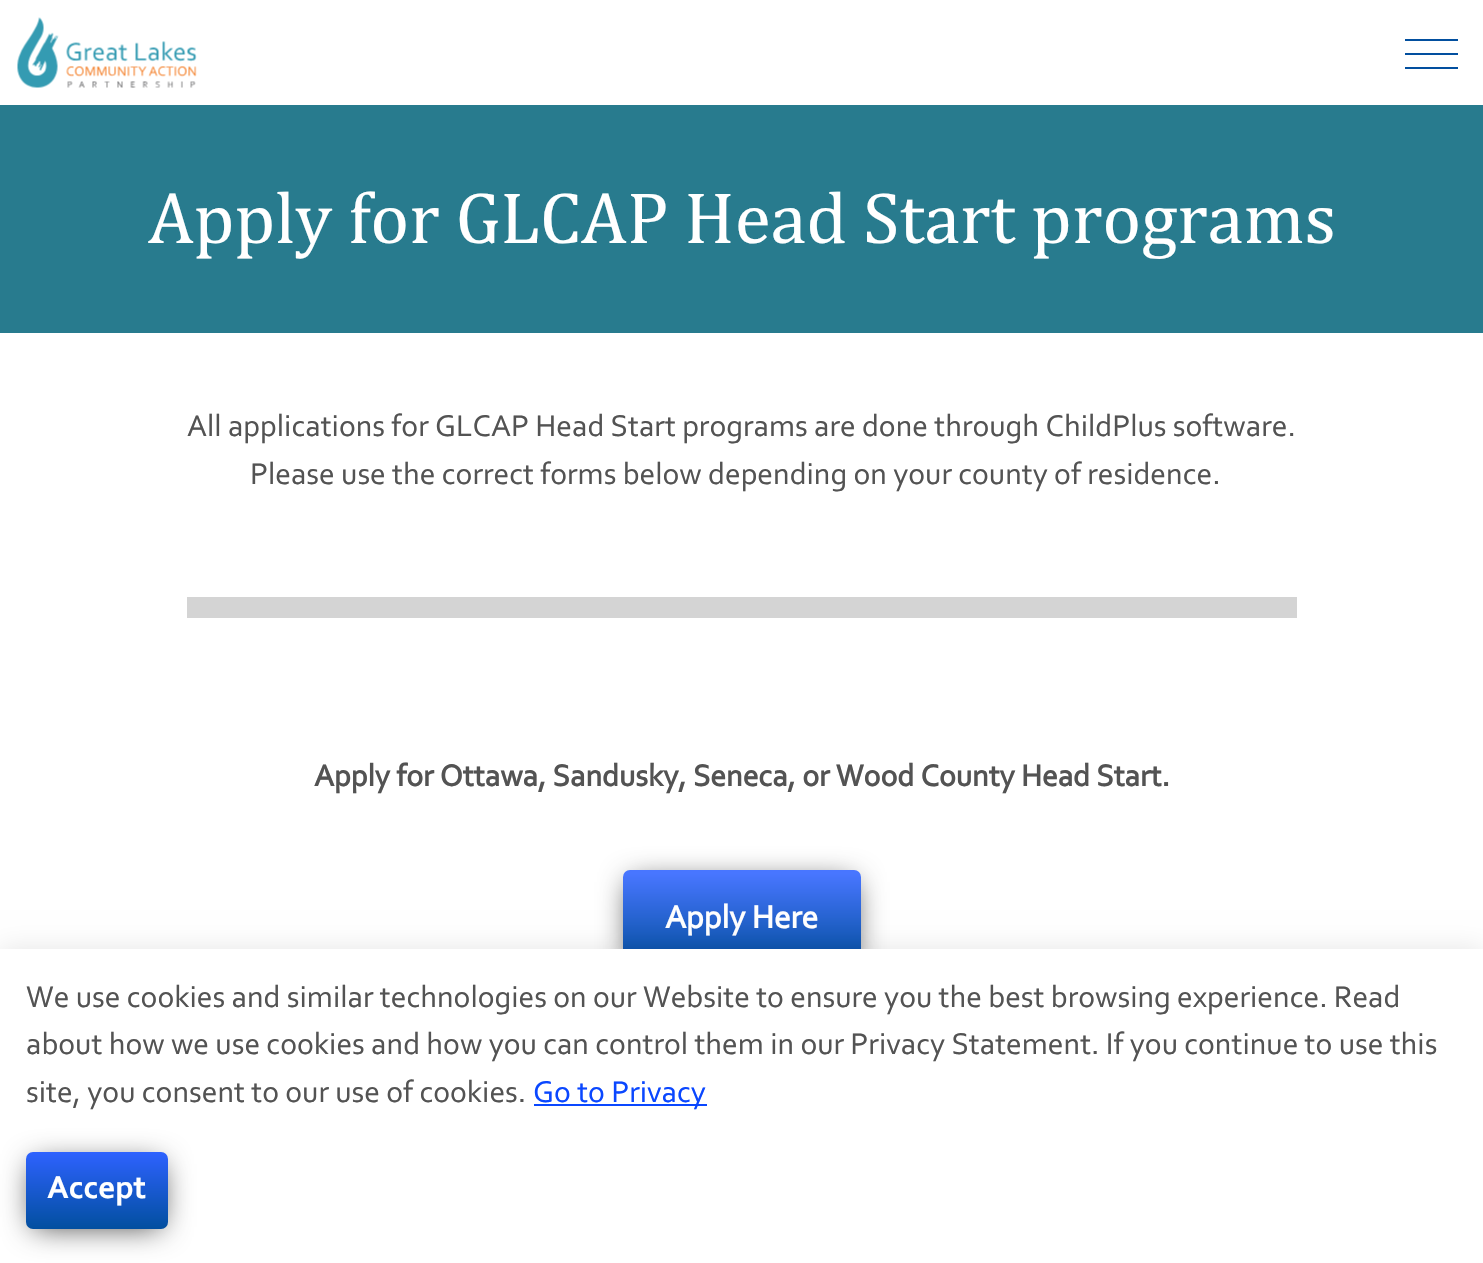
void draw(SkCanvas* canvas) {
    SkPaint paint;
    paint.setAntiAlias(true);
    auto spacedText = [&](const char* s, float x, float y, const SkFont& font, const SkPaint& ink, float letter, float word) {
        std::vector<SkGlyphID> glyphs(font.countText(s, strlen(s), SkTextEncoding::kUTF8));
        std::vector<float> xs(glyphs.size());
        font.textToGlyphs(s, strlen(s), SkTextEncoding::kUTF8, glyphs);
        font.getXPos(glyphs, xs, x);
        float extra = 0;
        for (size_t i = 0; i < glyphs.size(); i++) {
            xs[i] += extra;
            extra += letter + word * (glyphs[i] == font.unicharToGlyph(' '));
        }
        canvas->drawTextBlob(SkTextBlob::MakeFromPosHGlyphs(glyphs, xs, y, font), 0, 0, ink);
    };
    canvas->clear(0xFFFFFFFF);
    canvas->drawImageRect(SkImages::DeferredFromEncodedData(SkData::MakeFromFileName("img1.png")), SkRect::MakeXYWH(17, 17, 180, 71), SkSamplingOptions());
    paint.setColor(0xFF024F9F);
    canvas->drawRect(SkRect::MakeXYWH(1405, 53, 53, 2), paint);
    canvas->drawRect(SkRect::MakeXYWH(1405, 39, 53, 2), paint);
    canvas->drawRect(SkRect::MakeXYWH(1405, 67, 53, 2), paint);
    paint.setColor(0xFF287B8E);
    canvas->drawRect(SkRect::MakeXYWH(0, 105, 1483, 228), paint);
    SkFont font1(fontMgr->matchFamilyStyle("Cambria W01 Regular", SkFontStyle::Normal()), 73.5f);
    font1.setSubpixel(true);
    paint.setColor(0xFFFFFFFF);
    spacedText("Apply for GLCAP Head Start programs", 148, 243, font1, paint, -0.1f, 0);
    SkFont font2(fontMgr->matchFamilyStyle("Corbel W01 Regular", SkFontStyle::Normal()), 31.5f);
    font2.setSubpixel(true);
    paint.setColor(0xFF535353);
    canvas->drawString("All applications for GLCAP Head Start programs are done through ChildPlus software.", 187, 436, font2, paint);
    canvas->drawString("Please use the correct forms below depending on your county of residence.", 250, 484, font2, paint);
    paint.setColor(0xFFD4D4D4);
    canvas->drawRect(SkRect::MakeXYWH(187, 597, 1110, 21), paint);
    SkFont font3(fontMgr->matchFamilyStyle("Corbel W01 Regular", SkFontStyle::Bold()), 31.5f);
    font3.setSubpixel(true);
    paint.setColor(0xFF535353);
    canvas->drawString("Apply for Ottawa, Sandusky, Seneca, or Wood County Head Start.", 314, 786, font3, paint);
    paint.setColor(0xBF000000);
    paint.setMaskFilter(SkMaskFilter::MakeBlur(kNormal_SkBlurStyle, 15));
    canvas->drawRect(SkRect::MakeXYWH(630, 882, 224, 82), paint);
    paint.setMaskFilter(nullptr);
    {
        const SkColor colors[] = {0xFF4876FF, 0xFF024F9F};
        const float stops[] = {0.04f, 1};
        const SkPoint ends[] = {{742, 870}, {742, 966}};
        paint.setShader(SkGradientShader::MakeLinear(ends, colors, stops, 2, SkTileMode::kClamp));
        paint.setAlpha(255);
    }
    canvas->drawRoundRect(SkRect::MakeXYWH(623, 870, 238, 96), 7, 7, paint);
    SkFont font4(fontMgr->matchFamilyStyle("Corbel W01 Regular", SkFontStyle::Bold()), 33.25f);
    font4.setSubpixel(true);
    paint.setShader(nullptr);
    paint.setColor(0xFFFFFFFF);
    canvas->drawString("Apply Here", 665, 928, font4, paint);
    paint.setColor(0x1A000000);
    paint.setMaskFilter(SkMaskFilter::MakeBlur(kNormal_SkBlurStyle, 13));
    canvas->drawRect(SkRect::MakeXYWH(0, 949, 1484, 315), paint);
    paint.setMaskFilter(nullptr);
    paint.setColor(0xFFFFFFFF);
    canvas->drawRect(SkRect::MakeXYWH(0, 949, 1483, 314), paint);
    paint.setColor(0xFF535353);
    canvas->drawString("We use cookies and similar technologies on our Website to ensure you the best browsing experience. Read", 26, 1007, font2, paint);
    canvas->drawString("about how we use cookies and how you can control them in our Privacy Statement. If you continue to use this", 26, 1054, font2, paint);
    canvas->drawString("site, you consent to our use of cookies.", 26, 1102, font2, paint);
    paint.setColor(0xFF0A47FF);
    canvas->drawRect(SkRect::MakeXYWH(534, 1104, 173, 2), paint);
    canvas->drawString("Go to Privacy", 533, 1102, font2, paint);
    paint.setColor(0xBF000000);
    paint.setMaskFilter(SkMaskFilter::MakeBlur(kNormal_SkBlurStyle, 15));
    canvas->drawRect(SkRect::MakeXYWH(33, 1164, 128, 63), paint);
    paint.setMaskFilter(nullptr);
    {
        const SkColor colors[] = {0xFF2E62FF, 0xFF024F9F};
        const float stops[] = {0, 1};
        const SkPoint ends[] = {{97, 1152}, {97, 1229}};
        paint.setShader(SkGradientShader::MakeLinear(ends, colors, stops, 2, SkTileMode::kClamp));
        paint.setAlpha(255);
    }
    canvas->drawRoundRect(SkRect::MakeXYWH(26, 1152, 142, 77), 7, 7, paint);
    SkFont font5(fontMgr->matchFamilyStyle("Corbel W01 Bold", SkFontStyle::Bold()), 33.25f);
    font5.setSubpixel(true);
    paint.setShader(nullptr);
    paint.setColor(0xFFFFFFFF);
    canvas->drawString("Accept", 47, 1198, font5, paint);
}
